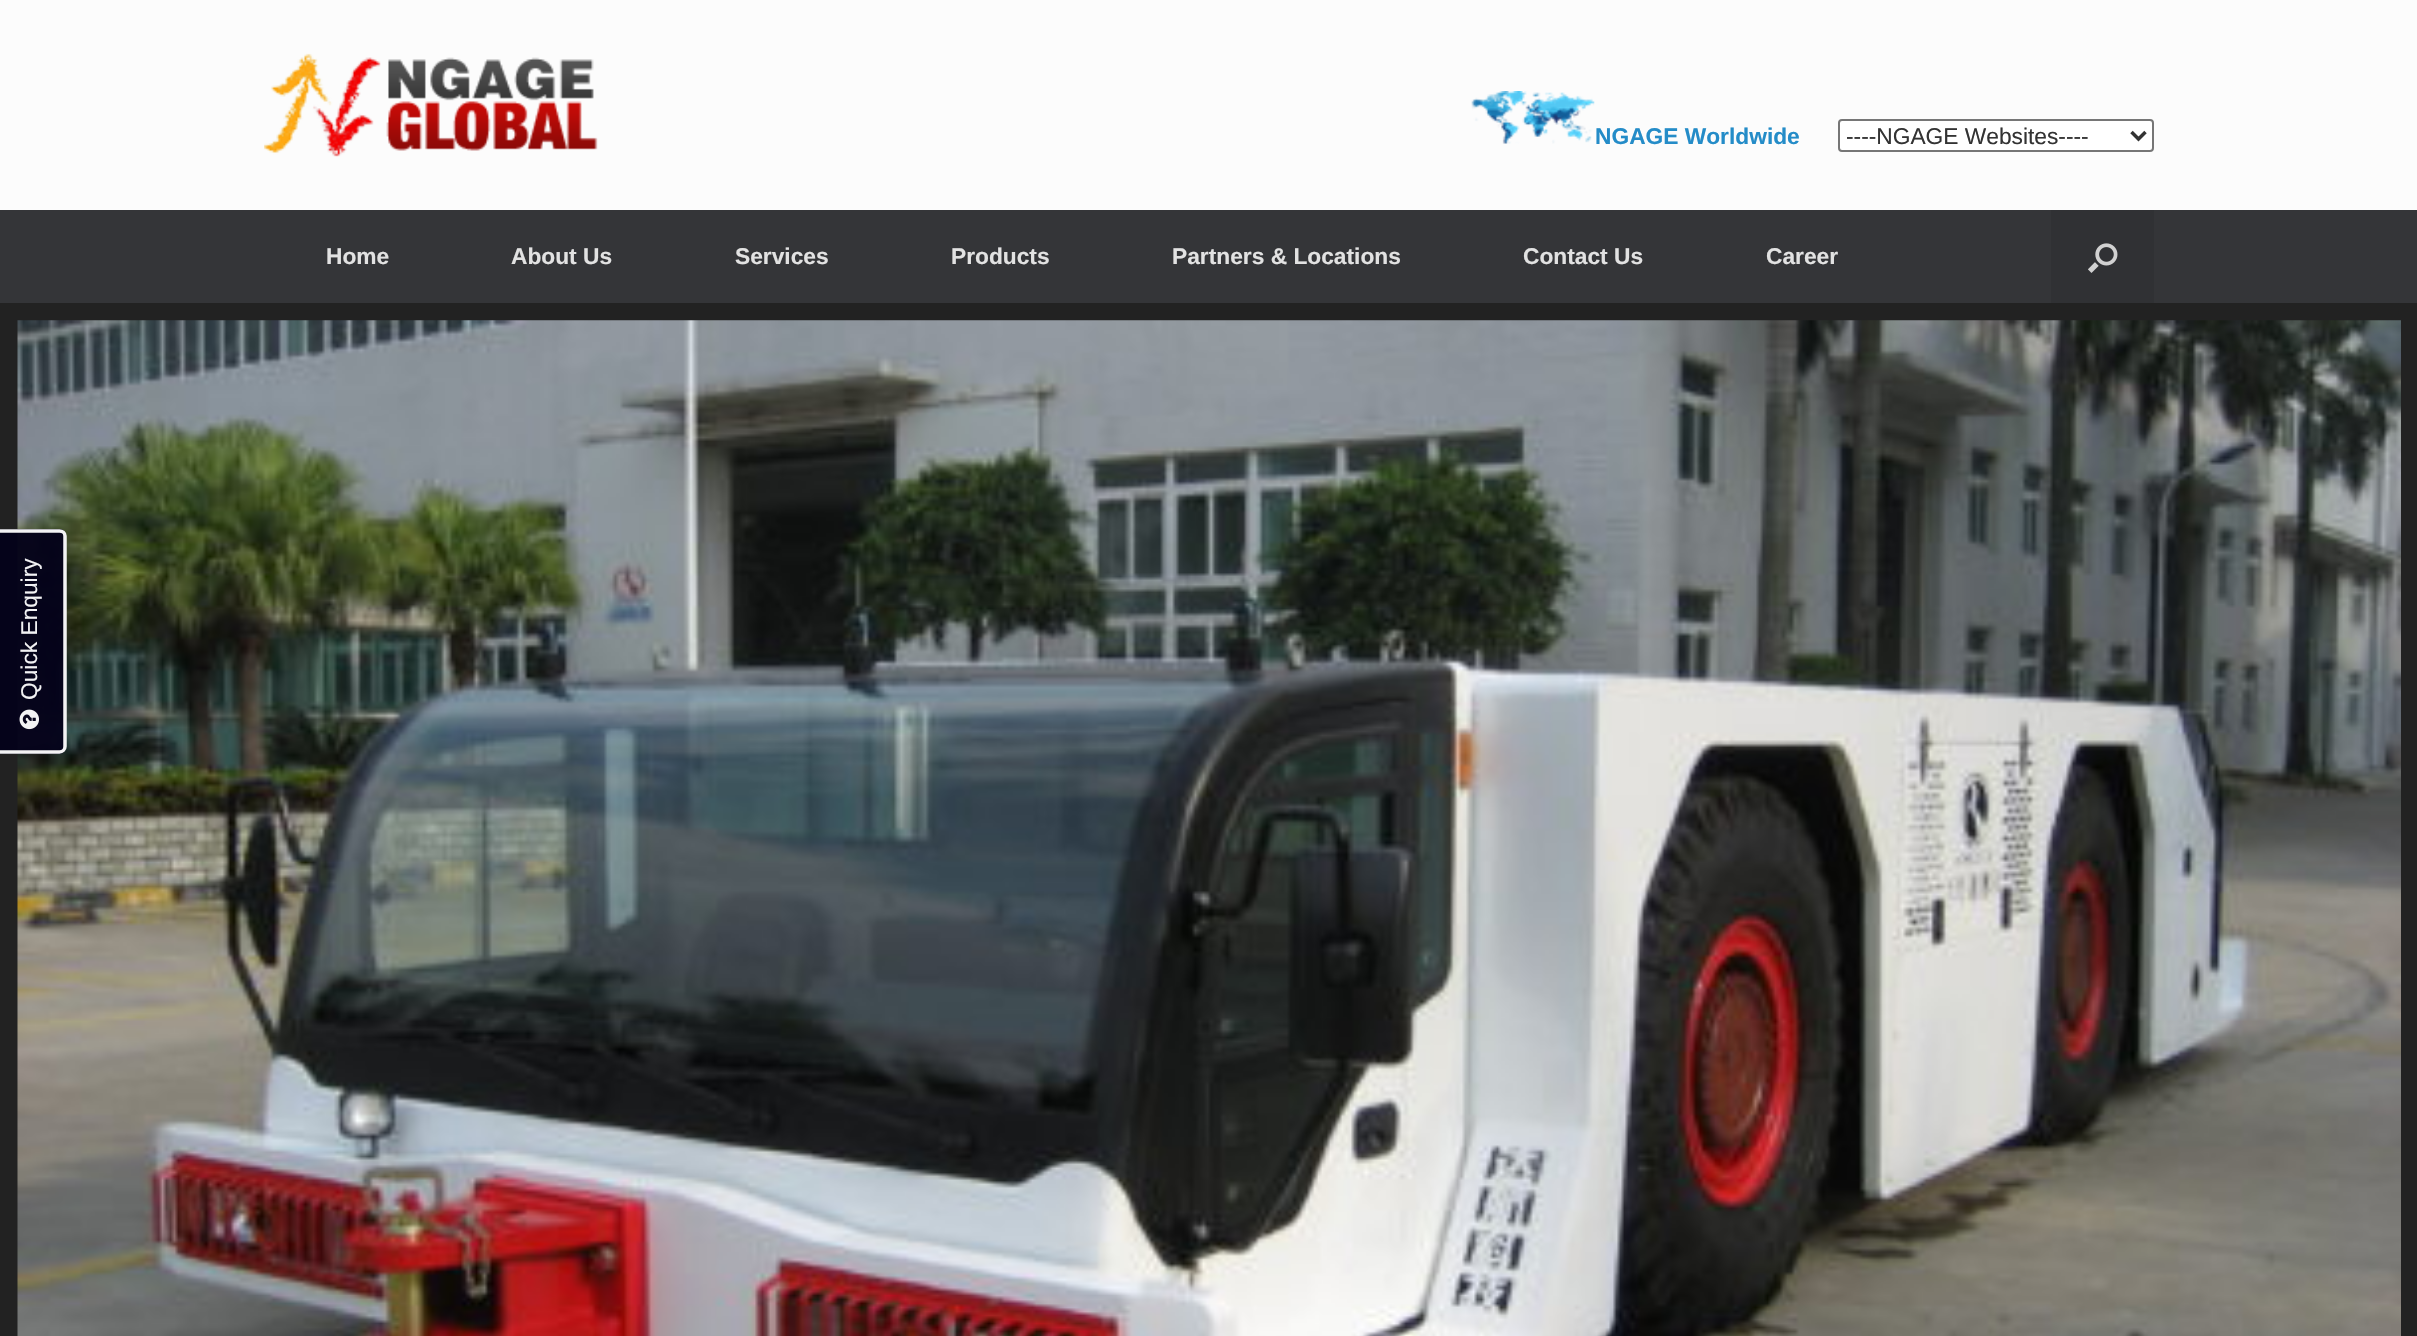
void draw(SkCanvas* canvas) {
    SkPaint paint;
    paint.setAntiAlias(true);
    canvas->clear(0xFFFCFCFC);
    canvas->drawImageRect(SkImages::DeferredFromEncodedData(SkData::MakeFromFileName("img1.png")), SkRect::MakeXYWH(264, 53, 334, 104), SkSamplingOptions());
    canvas->drawImageRect(SkImages::DeferredFromEncodedData(SkData::MakeFromFileName("img2.png")), SkRect::MakeXYWH(1471, 91, 124, 53), SkSamplingOptions());
    SkFont font1(fontMgr->matchFamilyStyle("Liberation Sans", SkFontStyle::Bold()), 22.75f);
    font1.setSubpixel(true);
    paint.setColor(0xFF248CC8);
    canvas->drawString("NGAGE Worldwide", 1595, 144, font1, paint);
    paint.setColor(0xFFFFFFFF);
    canvas->drawRoundRect(SkRect::MakeXYWH(1839, 120, 314, 31), 3, 3, paint);
    paint.setStyle(SkPaint::kStroke_Style);
    paint.setStrokeWidth(2);
    paint.setColor(0xFF767676);
    canvas->drawRoundRect(SkRect::MakeXYWH(1839, 120, 314, 31), 3, 3, paint);
    paint.setStrokeWidth(3.5f);
    paint.setColor(0xFF333333);
    canvas->drawPath(SkPathBuilder().moveTo(2131.5f, 132).lineTo(2138.5f, 139).lineTo(2145.5f, 132).detach(), paint);
    SkFont font2(fontMgr->matchFamilyStyle("Liberation Sans", SkFontStyle::Normal()), 22.75f);
    font2.setSubpixel(true);
    paint.setStyle(SkPaint::kFill_Style);
    canvas->drawString("----NGAGE Websites----", 1846, 144, font2, paint);
    paint.setColor(0xFF343538);
    canvas->drawRect(SkRect::MakeXYWH(0, 210, 2417, 93), paint);
    paint.setColor(0xFFE2E2E2);
    canvas->drawString("Home", 326, 264, font1, paint);
    canvas->drawString("About Us", 511, 264, font1, paint);
    canvas->drawString("Services", 735, 264, font1, paint);
    canvas->drawString("Products", 951, 264, font1, paint);
    canvas->drawString("Partners & Locations", 1172, 264, font1, paint);
    canvas->drawString("Contact Us", 1523, 264, font1, paint);
    canvas->drawString("Career", 1766, 264, font1, paint);
    paint.setColor(0xFF303134);
    canvas->drawRect(SkRect::MakeXYWH(2051, 210, 103, 93), paint);
    canvas->drawImageRect(SkImages::DeferredFromEncodedData(SkData::MakeFromFileName("img3.png")), SkRect::MakeXYWH(2088, 243, 30, 30), SkSamplingOptions());
    paint.setColor(0xFF222222);
    canvas->drawRect(SkRect::MakeXYWH(0, 303, 2417, 1033), paint);
    canvas->drawImageRect(SkImages::DeferredFromEncodedData(SkData::MakeFromFileName("img4.png")), SkRect::MakeXYWH(17, 320, 2384, 1016), SkSamplingOptions());
    paint.setColor(0xF2030119);
    canvas->drawPath(SkPathBuilder().moveTo(-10, 747).lineTo(-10, 536).cubicTo(-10, 532, -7, 529, -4, 529).lineTo(60, 529).cubicTo(63, 529, 66, 532, 66, 536).lineTo(66, 747).cubicTo(66, 750, 63, 754, 60, 754).lineTo(-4, 754).cubicTo(-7, 754, -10, 750, -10, 747).close().detach(), paint);
    paint.setStyle(SkPaint::kStroke_Style);
    paint.setColor(0xF2FFFFFF);
    canvas->drawPath(SkPathBuilder().moveTo(-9, 746.5f).lineTo(-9, 536).cubicTo(-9, 533, -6.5f, 531, -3.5f, 531).lineTo(59.5f, 531).cubicTo(62.5f, 531, 65, 533, 65, 536).lineTo(65, 746.5f).cubicTo(65, 749.5f, 62.5f, 752, 59.5f, 752).lineTo(-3.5f, 752).cubicTo(-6.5f, 752, -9, 749.5f, -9, 746.5f).close().detach(), paint);
    paint.setStyle(SkPaint::kFill_Style);
    paint.setColor(0xFFF2F2F4);
    canvas->save();
    canvas->rotate(-90, 37, 700);
    canvas->drawString("Quick Enquiry", 37, 700, font2, paint);
    canvas->restore();
    canvas->drawImageRect(SkImages::DeferredFromEncodedData(SkData::MakeFromFileName("img5.png")), SkRect::MakeXYWH(19, 709, 20, 21), SkSamplingOptions());
}
